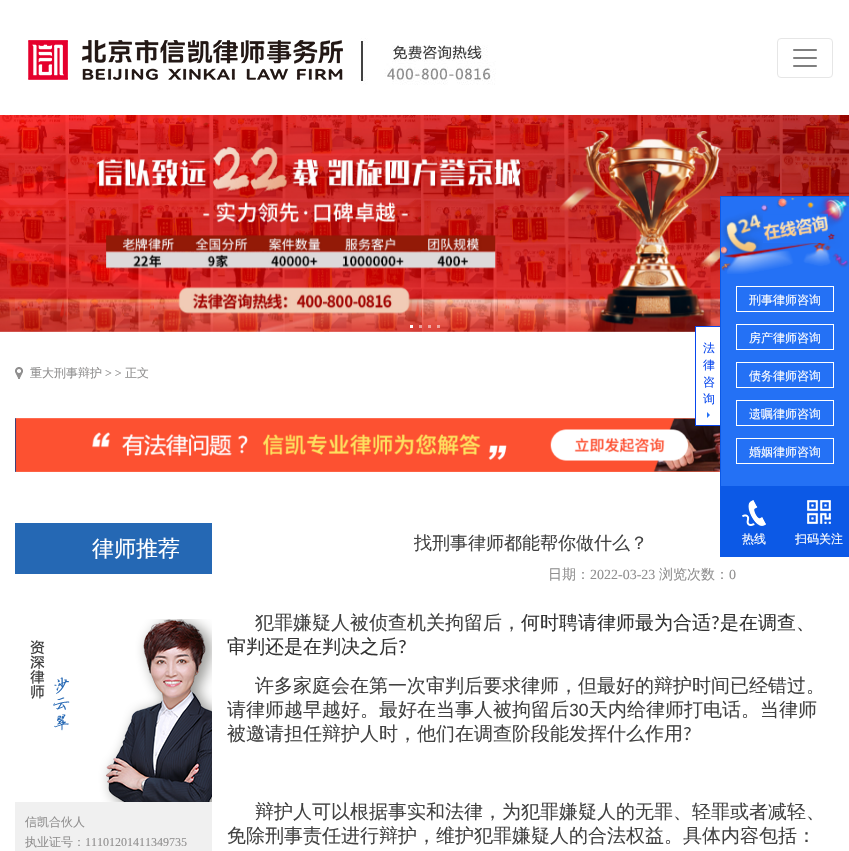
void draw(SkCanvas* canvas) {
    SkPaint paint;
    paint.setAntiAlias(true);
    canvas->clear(0xFFFFFFFF);
    canvas->drawImageRect(SkImages::DeferredFromEncodedData(SkData::MakeFromFileName("img1.png")), SkRect::MakeXYWH(28, 38, 468, 47), SkSamplingOptions());
    paint.setStyle(SkPaint::kStroke_Style);
    paint.setStrokeWidth(1);
    paint.setColor(0xFFE6E6E6);
    canvas->drawRoundRect(SkRect::MakeXYWH(777.5f, 38.5f, 55, 39), 3.5f, 3.5f, paint);
    canvas->drawImageRect(SkImages::DeferredFromEncodedData(SkData::MakeFromFileName("img2.png")), SkRect::MakeXYWH(793, 49, 24, 18), SkSamplingOptions());
    canvas->drawImageRect(SkImages::DeferredFromEncodedData(SkData::MakeFromFileName("img3.png")), SkRect::MakeXYWH(0, 115, 849, 217), SkSamplingOptions());
    paint.setStyle(SkPaint::kFill_Style);
    paint.setColor(0xFFFFFFFF);
    canvas->drawRect(SkRect::MakeXYWH(410, 325, 3, 3), paint);
    paint.setColor(0x80FFFFFF);
    canvas->drawRect(SkRect::MakeXYWH(419, 325, 3, 3), paint);
    canvas->drawRect(SkRect::MakeXYWH(428, 325, 3, 3), paint);
    canvas->drawRect(SkRect::MakeXYWH(437, 325, 3, 3), paint);
    canvas->drawImageRect(SkImages::DeferredFromEncodedData(SkData::MakeFromFileName("img9.png")), SkRect::MakeXYWH(15, 418, 705, 54), SkSamplingOptions());
    paint.setColor(0xFFFFFFFF);
    canvas->drawRect(SkRect::MakeXYWH(696, 327, 24, 98), paint);
    paint.setColor(0xFF0847EE);
    canvas->drawRect(SkRect::MakeXYWH(695, 326, 25, 1), paint);
    canvas->drawRect(SkRect::MakeXYWH(695, 425, 25, 1), paint);
    canvas->drawRect(SkRect::MakeXYWH(695, 326, 1, 100), paint);
    SkFont font1(fontMgr->matchFamilyStyle("WenQuanYi Zen Hei", SkFontStyle(500, SkFontStyle::kNormal_Width, SkFontStyle::kUpright_Slant)), 12);
    font1.setSubpixel(true);
    canvas->drawString("法", 703, 352, font1, paint);
    canvas->drawString("律", 703, 369, font1, paint);
    canvas->drawString("咨", 703, 386, font1, paint);
    canvas->drawString("询", 703, 403, font1, paint);
    paint.setColor(0xFF2471F5);
    canvas->drawPath(SkPathBuilder().moveTo(707, 418).lineTo(707, 412).lineTo(710, 415).close().detach(), paint);
    canvas->drawRect(SkRect::MakeXYWH(721, 197, 128, 289), paint);
    paint.setStyle(SkPaint::kStroke_Style);
    paint.setColor(0xFF0C59E6);
    canvas->drawRect(SkRect::MakeXYWH(720.5f, 196.5f, 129, 360), paint);
    canvas->drawImageRect(SkImages::DeferredFromEncodedData(SkData::MakeFromFileName("img4.png")), SkRect::MakeXYWH(721, 197, 128, 77), SkSamplingOptions());
    canvas->drawImageRect(SkImages::DeferredFromEncodedData(SkData::MakeFromFileName("img5.png")), SkRect::MakeXYWH(763, 213, 65, 30), SkSamplingOptions());
    paint.setColor(0xFFFFFFFF);
    canvas->drawRect(SkRect::MakeXYWH(736.5f, 286.5f, 97, 25), paint);
    paint.setStyle(SkPaint::kFill_Style);
    canvas->drawString("刑事律师咨询", 749, 304, font1, paint);
    paint.setStyle(SkPaint::kStroke_Style);
    canvas->drawRect(SkRect::MakeXYWH(736.5f, 324.5f, 97, 25), paint);
    paint.setStyle(SkPaint::kFill_Style);
    canvas->drawString("房产律师咨询", 749, 342, font1, paint);
    paint.setStyle(SkPaint::kStroke_Style);
    canvas->drawRect(SkRect::MakeXYWH(736.5f, 362.5f, 97, 25), paint);
    paint.setStyle(SkPaint::kFill_Style);
    canvas->drawString("债务律师咨询", 749, 380, font1, paint);
    paint.setStyle(SkPaint::kStroke_Style);
    canvas->drawRect(SkRect::MakeXYWH(736.5f, 400.5f, 97, 25), paint);
    paint.setStyle(SkPaint::kFill_Style);
    canvas->drawString("遗嘱律师咨询", 749, 418, font1, paint);
    paint.setStyle(SkPaint::kStroke_Style);
    canvas->drawRect(SkRect::MakeXYWH(736.5f, 438.5f, 97, 25), paint);
    paint.setStyle(SkPaint::kFill_Style);
    canvas->drawString("婚姻律师咨询", 749, 456, font1, paint);
    paint.setColor(0xFF0C59E6);
    canvas->drawRect(SkRect::MakeXYWH(721, 486, 128, 70), paint);
    canvas->drawImageRect(SkImages::DeferredFromEncodedData(SkData::MakeFromFileName("img6.png")), SkRect::MakeXYWH(742, 500, 24, 26), SkSamplingOptions());
    paint.setColor(0xFFFFFFFF);
    canvas->drawString("热线", 742, 543, font1, paint);
    canvas->drawImageRect(SkImages::DeferredFromEncodedData(SkData::MakeFromFileName("img7.png")), SkRect::MakeXYWH(807, 500, 24, 24), SkSamplingOptions());
    canvas->drawString("扫码关注", 795, 543, font1, paint);
    canvas->drawImageRect(SkImages::DeferredFromEncodedData(SkData::MakeFromFileName("img8.png")), SkRect::MakeXYWH(15, 367, 8, 12), SkSamplingOptions());
    paint.setColor(0xFF908F8F);
    canvas->drawString("重大刑事辩护", 30, 377, font1, paint);
    SkFont font2(fontMgr->matchFamilyStyle("Liberation Serif", SkFontStyle::Normal()), 12);
    font2.setSubpixel(true);
    canvas->drawString("> >", 105, 377, font2, paint);
    canvas->drawString("正文", 125, 377, font1, paint);
    paint.setColor(0xFF2568B4);
    canvas->drawRect(SkRect::MakeXYWH(15, 523, 197, 51), paint);
    SkFont font3(fontMgr->matchFamilyStyle("WenQuanYi Zen Hei", SkFontStyle(500, SkFontStyle::kNormal_Width, SkFontStyle::kUpright_Slant)), 22);
    font3.setSubpixel(true);
    paint.setColor(0xFFFFFFFF);
    canvas->drawString("律师推荐", 92, 556, font3, paint);
    canvas->drawImageRect(SkImages::DeferredFromEncodedData(SkData::MakeFromFileName("img10.png")), SkRect::MakeXYWH(30, 619, 182, 183), SkSamplingOptions());
    paint.setColor(0xFFF0F0F0);
    canvas->drawRect(SkRect::MakeXYWH(15, 802, 197, 49), paint);
    paint.setColor(0xFF908F8F);
    canvas->drawString("信凯合伙人", 25, 826, font1, paint);
    canvas->drawString("执业证号：", 25, 846, font1, paint);
    canvas->drawString("11101201411349735", 85, 846, font2, paint);
    SkFont font4(fontMgr->matchFamilyStyle("WenQuanYi Zen Hei", SkFontStyle(500, SkFontStyle::kNormal_Width, SkFontStyle::kUpright_Slant)), 18);
    font4.setSubpixel(true);
    paint.setColor(0xFF424242);
    canvas->drawString("找刑事律师都能帮你做什么？", 414, 549, font4, paint);
    SkFont font5(fontMgr->matchFamilyStyle("WenQuanYi Zen Hei", SkFontStyle(500, SkFontStyle::kNormal_Width, SkFontStyle::kUpright_Slant)), 14);
    font5.setSubpixel(true);
    paint.setColor(0xFF908F8F);
    canvas->drawString("日期：", 548, 579, font5, paint);
    SkFont font6(fontMgr->matchFamilyStyle("Liberation Serif", SkFontStyle::Normal()), 14);
    font6.setSubpixel(true);
    canvas->drawString("2022-03-23", 590, 579, font6, paint);
    canvas->drawString("浏览次数：", 659, 579, font5, paint);
    canvas->drawString("0", 729, 579, font6, paint);
    SkFont font7(fontMgr->matchFamilyStyle("WenQuanYi Zen Hei", SkFontStyle(500, SkFontStyle::kNormal_Width, SkFontStyle::kUpright_Slant)), 19);
    font7.setSubpixel(true);
    paint.setColor(0xFF424242);
    canvas->drawString("犯罪嫌疑人被侦查机关拘留后，", 255, 629, font7, paint);
    paint.setColor(0xFF333333);
    canvas->drawString("何时聘请律师最为合适", 521, 629, font7, paint);
    SkFont font8(fontMgr->matchFamilyStyle("Carlito", SkFontStyle::Normal()), 19);
    font8.setSubpixel(true);
    canvas->drawString("?", 711, 629, font8, paint);
    canvas->drawString("是在调查、", 720, 629, font7, paint);
    canvas->drawString("审判还是在判决之后", 227, 653, font7, paint);
    canvas->drawString("?", 398, 653, font8, paint);
    paint.setColor(0xFF424242);
    canvas->drawString("许多家庭会在第一次审判后要求律师，但最好的辩护时间已经错过。", 255, 692, font7, paint);
    canvas->drawString("请律师越早越好。最好在当事人被拘留后", 227, 716, font7, paint);
    canvas->drawString("30", 569, 716, font8, paint);
    canvas->drawString("天内给律师打电话。当律师", 589, 716, font7, paint);
    canvas->drawString("被邀请担任辩护人时，他们在调查阶段能发挥什么作用", 227, 740, font7, paint);
    canvas->drawString("?", 683, 740, font8, paint);
    canvas->drawString("辩护人可以根据事实和法律，为犯罪嫌疑人的无罪、轻罪或者减轻、", 255, 818, font7, paint);
    canvas->drawString("免除刑事责任进行辩护，维护犯罪嫌疑人的合法权益。具体内容包括：", 227, 842, font7, paint);
}
